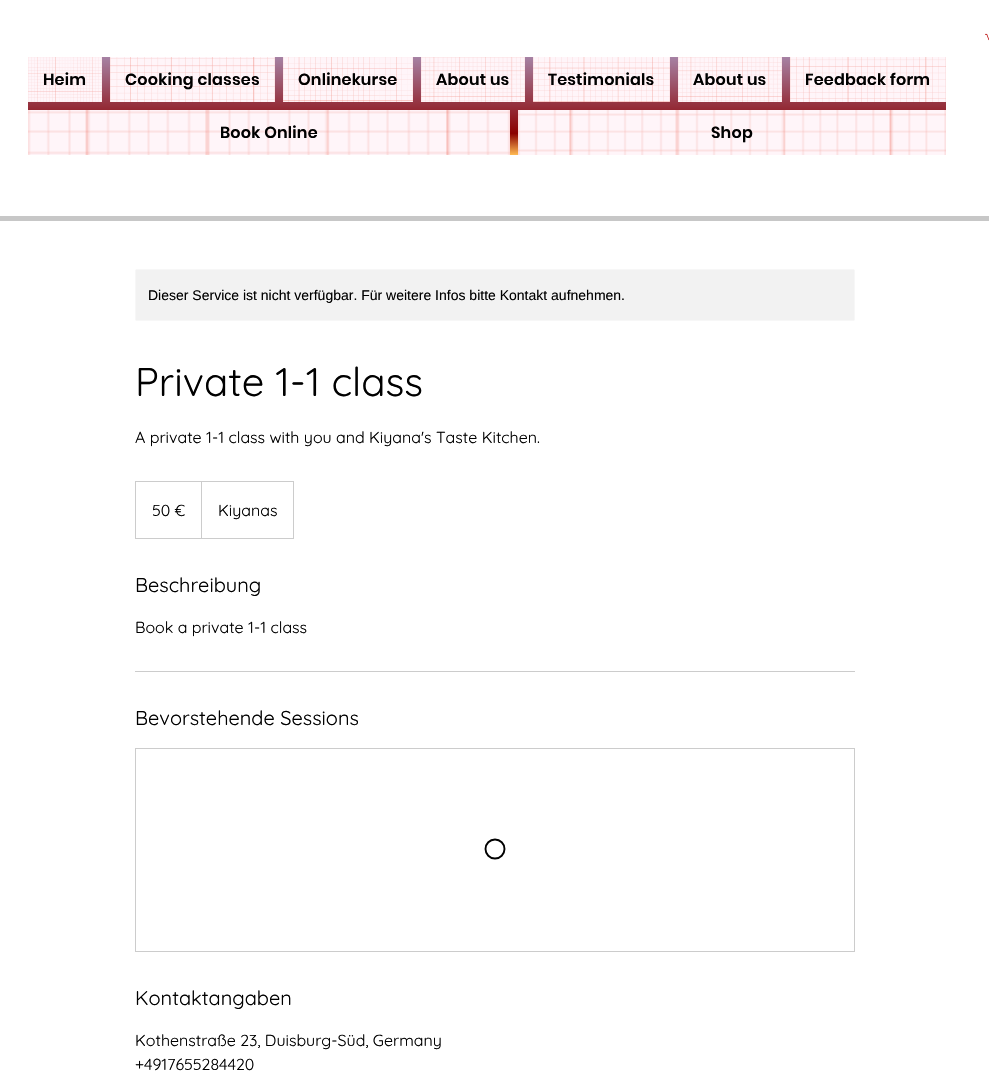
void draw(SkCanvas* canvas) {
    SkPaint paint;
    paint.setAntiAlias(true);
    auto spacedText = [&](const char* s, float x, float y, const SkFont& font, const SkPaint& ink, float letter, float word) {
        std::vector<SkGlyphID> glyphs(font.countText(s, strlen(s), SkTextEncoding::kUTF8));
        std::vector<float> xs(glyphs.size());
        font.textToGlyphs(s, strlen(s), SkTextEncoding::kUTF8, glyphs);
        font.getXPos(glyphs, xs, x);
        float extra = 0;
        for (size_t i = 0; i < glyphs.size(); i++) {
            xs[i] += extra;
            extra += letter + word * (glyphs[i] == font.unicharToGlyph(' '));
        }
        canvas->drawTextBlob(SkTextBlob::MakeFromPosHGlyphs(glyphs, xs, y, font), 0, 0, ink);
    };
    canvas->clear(0xFFFFFFFF);
    canvas->drawImageRect(SkImages::DeferredFromEncodedData(SkData::MakeFromFileName("img1.png")), SkRect::MakeXYWH(985, 33, 4, 8), SkSamplingOptions());
    {
        const SkColor colors[] = {0xFFA682A4, 0xFF8B0000, 0xFFFFBA52};
        const float stops[] = {0, 0.78f, 1};
        const SkPoint ends[] = {{487, 57}, {487, 155}};
        paint.setShader(SkGradientShader::MakeLinear(ends, colors, stops, 3, SkTileMode::kClamp));
        paint.setAlpha(255);
    }
    canvas->drawRect(SkRect::MakeXYWH(28, 57, 918, 98), paint);
    paint.setShader(nullptr);
    paint.setColor(0xFFFFF5F9);
    canvas->drawRect(SkRect::MakeXYWH(28, 57, 74, 45), paint);
    canvas->drawImageRect(SkImages::DeferredFromEncodedData(SkData::MakeFromFileName("img2.png")), SkRect::MakeXYWH(28, 57, 74, 45), SkSamplingOptions());
    SkFont font1(fontMgr->matchFamilyStyle("Poppins", SkFontStyle(600, SkFontStyle::kNormal_Width, SkFontStyle::kUpright_Slant)), 16);
    font1.setSubpixel(true);
    paint.setColor(0xFF000000);
    spacedText("Heim", 43, 85, font1, paint, 0.2f, 0);
    paint.setColor(0xFFFFF5F9);
    canvas->drawRect(SkRect::MakeXYWH(110, 57, 165, 45), paint);
    canvas->drawImageRect(SkImages::DeferredFromEncodedData(SkData::MakeFromFileName("img3.png")), SkRect::MakeXYWH(110, 57, 165, 45), SkSamplingOptions());
    paint.setColor(0xFF000000);
    spacedText("Cooking classes", 125, 85, font1, paint, 0.2f, 0);
    paint.setColor(0xFFFFF5F9);
    canvas->drawRect(SkRect::MakeXYWH(283, 57, 130, 45), paint);
    canvas->drawImageRect(SkImages::DeferredFromEncodedData(SkData::MakeFromFileName("img4.png")), SkRect::MakeXYWH(283, 57, 130, 45), SkSamplingOptions());
    paint.setColor(0xFF000000);
    spacedText("Onlinekurse", 298, 85, font1, paint, 0.2f, 0);
    paint.setColor(0xFFFFF5F9);
    canvas->drawRect(SkRect::MakeXYWH(421, 57, 104, 45), paint);
    canvas->drawImageRect(SkImages::DeferredFromEncodedData(SkData::MakeFromFileName("img5.png")), SkRect::MakeXYWH(421, 57, 104, 45), SkSamplingOptions());
    paint.setColor(0xFF000000);
    spacedText("About us", 436, 85, font1, paint, 0.2f, 0);
    paint.setColor(0xFFFFF5F9);
    canvas->drawRect(SkRect::MakeXYWH(533, 57, 137, 45), paint);
    canvas->drawImageRect(SkImages::DeferredFromEncodedData(SkData::MakeFromFileName("img6.png")), SkRect::MakeXYWH(533, 57, 137, 45), SkSamplingOptions());
    paint.setColor(0xFF000000);
    spacedText("Testimonials", 548, 85, font1, paint, 0.2f, 0);
    paint.setColor(0xFFFFF5F9);
    canvas->drawRect(SkRect::MakeXYWH(678, 57, 104, 45), paint);
    canvas->drawImageRect(SkImages::DeferredFromEncodedData(SkData::MakeFromFileName("img5.png")), SkRect::MakeXYWH(678, 57, 104, 45), SkSamplingOptions());
    paint.setColor(0xFF000000);
    spacedText("About us", 693, 85, font1, paint, 0.2f, 0);
    paint.setColor(0xFFFFF5F9);
    canvas->drawRect(SkRect::MakeXYWH(790, 57, 156, 45), paint);
    canvas->drawImageRect(SkImages::DeferredFromEncodedData(SkData::MakeFromFileName("img7.png")), SkRect::MakeXYWH(790, 57, 156, 45), SkSamplingOptions());
    paint.setColor(0xFF000000);
    spacedText("Feedback form", 805, 85, font1, paint, 0.2f, 0);
    paint.setColor(0xFFFFF5F9);
    canvas->drawRect(SkRect::MakeXYWH(28, 110, 482, 45), paint);
    canvas->drawImageRect(SkImages::DeferredFromEncodedData(SkData::MakeFromFileName("img8.png")), SkRect::MakeXYWH(28, 110, 482, 45), SkSamplingOptions());
    paint.setColor(0xFF000000);
    spacedText("Book Online", 220, 138, font1, paint, 0.2f, 0);
    paint.setColor(0xFFFFF5F9);
    canvas->drawRect(SkRect::MakeXYWH(518, 110, 428, 45), paint);
    canvas->drawImageRect(SkImages::DeferredFromEncodedData(SkData::MakeFromFileName("img9.png")), SkRect::MakeXYWH(518, 110, 428, 45), SkSamplingOptions());
    paint.setColor(0xFF000000);
    spacedText("Shop", 711, 138, font1, paint, 0.2f, 0);
    paint.setColor(0xFFC7C7C7);
    canvas->drawRect(SkRect::MakeXYWH(0, 216, 989, 5), paint);
    paint.setColor(0xFFF2F2F2);
    canvas->drawRoundRect(SkRect::MakeXYWH(135.5f, 269.5f, 719, 51), 1.5f, 1.5f, paint);
    paint.setStyle(SkPaint::kStroke_Style);
    paint.setStrokeWidth(1);
    paint.setColor(0xFFF7F7F7);
    canvas->drawRoundRect(SkRect::MakeXYWH(135.5f, 269.5f, 719, 51), 1.5f, 1.5f, paint);
    SkFont font2(fontMgr->matchFamilyStyle("Liberation Sans", SkFontStyle::Normal()), 14);
    font2.setSubpixel(true);
    paint.setStyle(SkPaint::kFill_Style);
    paint.setColor(0xFF000000);
    canvas->drawString("Dieser Service ist nicht verfügbar. Für weitere Infos bitte Kontakt aufnehmen.", 148, 300, font2, paint);
    SkFont font3(fontMgr->matchFamilyStyle("Quicksand", SkFontStyle::Normal()), 40);
    font3.setSubpixel(true);
    canvas->drawString("Private 1-1 class", 135, 396, font3, paint);
    SkFont font4(fontMgr->matchFamilyStyle("Quicksand", SkFontStyle::Normal()), 16);
    font4.setSubpixel(true);
    canvas->drawString("A private 1-1 class with you and Kiyana's Taste Kitchen.", 135, 443, font4, paint);
    paint.setStyle(SkPaint::kStroke_Style);
    paint.setColor(0xFFCCCCCC);
    canvas->drawRect(SkRect::MakeXYWH(135.5f, 481.5f, 158, 57), paint);
    paint.setStyle(SkPaint::kFill_Style);
    paint.setColor(0xFF000000);
    canvas->drawString("50 €", 152, 516, font4, paint);
    paint.setColor(0xFFCCCCCC);
    canvas->drawPath(SkPathBuilder().moveTo(201, 538).lineTo(201, 481).lineTo(202, 482).lineTo(202, 538).close().detach(), paint);
    paint.setColor(0xFF000000);
    canvas->drawString("Kiyanas", 218, 516, font4, paint);
    SkFont font5(fontMgr->matchFamilyStyle("Quicksand", SkFontStyle::Normal()), 20);
    font5.setSubpixel(true);
    canvas->drawString("Beschreibung", 135, 592, font5, paint);
    canvas->drawString("Book a private 1-1 class", 135, 633, font4, paint);
    paint.setColor(0xFFCCCCCC);
    canvas->drawRect(SkRect::MakeXYWH(135, 671, 720, 1), paint);
    paint.setColor(0xFF000000);
    canvas->drawString("Bevorstehende Sessions", 135, 725, font5, paint);
    paint.setStyle(SkPaint::kStroke_Style);
    paint.setColor(0xFFCCCCCC);
    canvas->drawRect(SkRect::MakeXYWH(135.5f, 748.5f, 719, 203), paint);
    paint.setStrokeWidth(1.9f);
    paint.setColor(0xFF000000);
    canvas->drawCircle(495, 849, 9.5f, paint);
    paint.setStyle(SkPaint::kFill_Style);
    canvas->drawString("Kontaktangaben", 135, 1005, font5, paint);
    canvas->drawString("Kothenstraße 23, Duisburg-Süd, Germany", 135, 1046, font4, paint);
    canvas->drawString("+4917655284420", 135, 1070, font4, paint);
}
